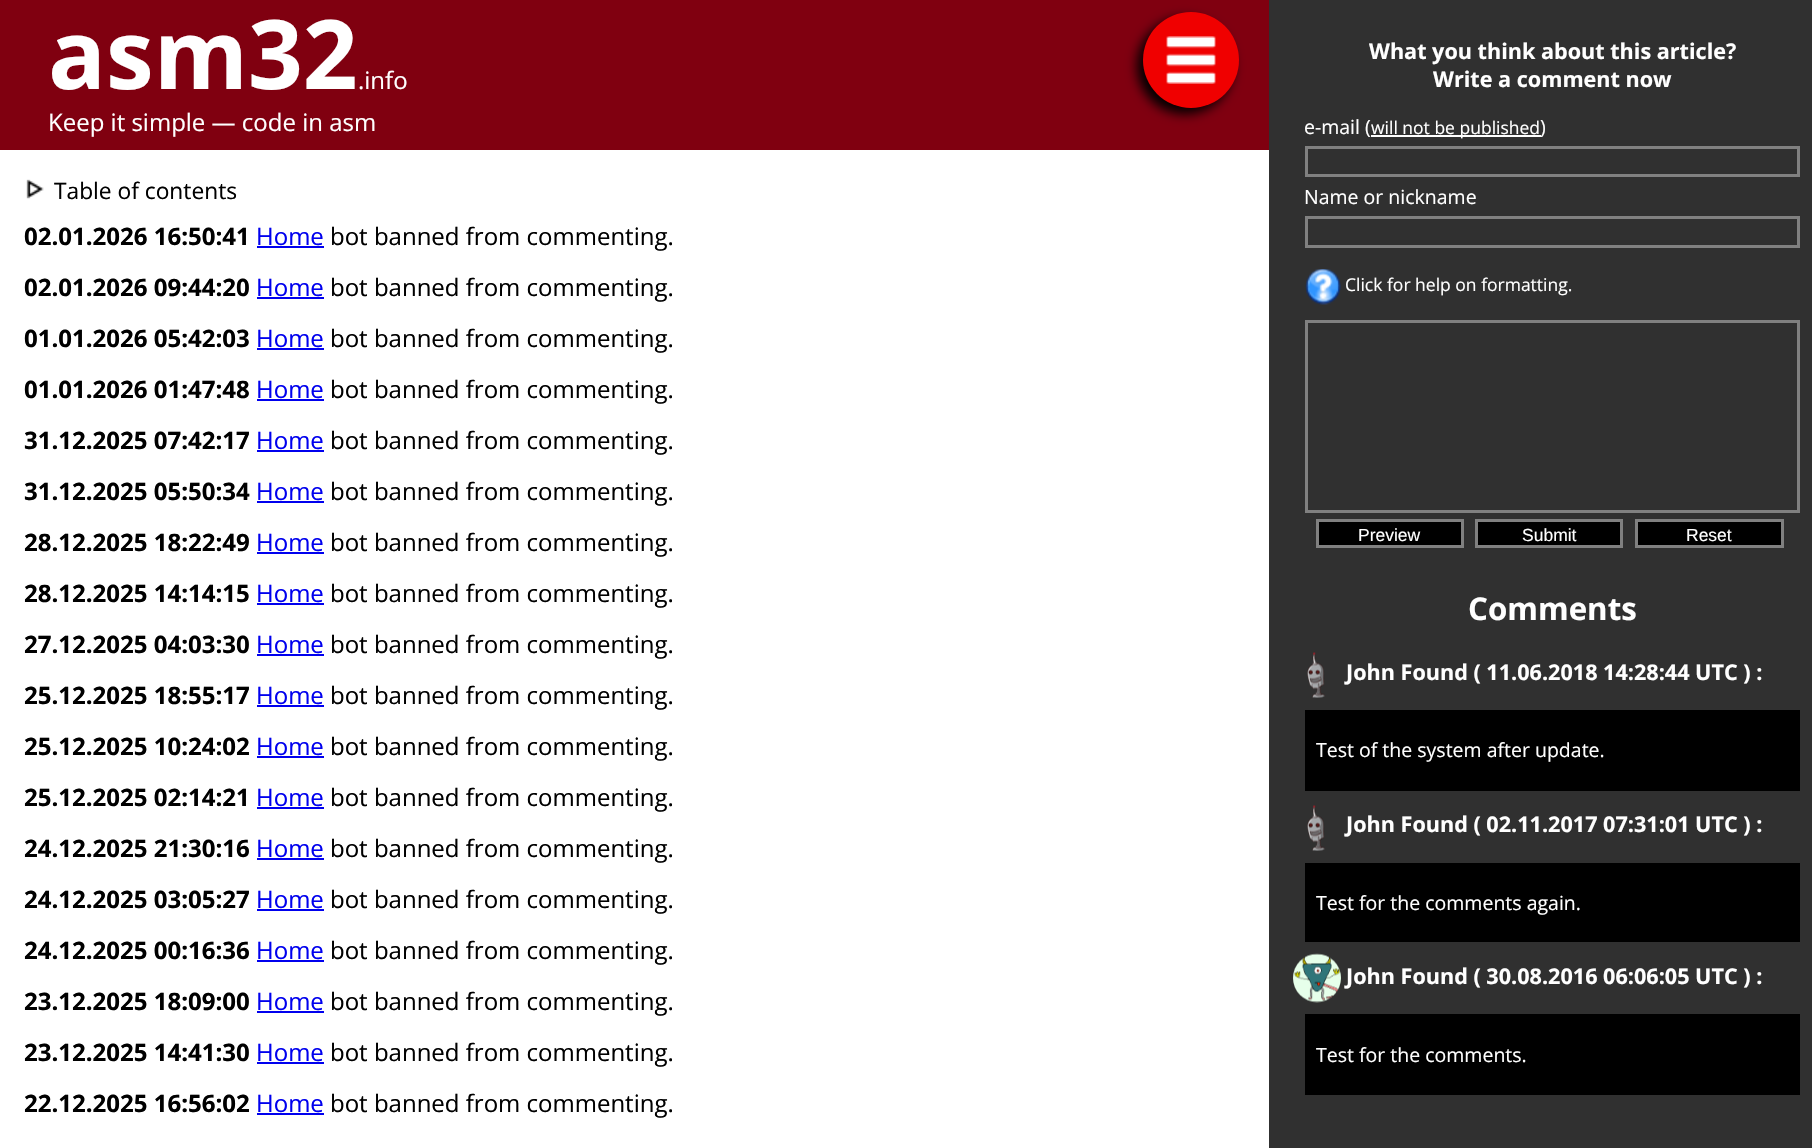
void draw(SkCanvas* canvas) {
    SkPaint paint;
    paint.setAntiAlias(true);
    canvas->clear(0xFFFFFFFF);
    paint.setColor(0xFF800010);
    canvas->drawRect(SkRect::MakeXYWH(0, 0, 1269, 150), paint);
    SkFont font1(fontMgr->matchFamilyStyle("Open Sans", SkFontStyle::Bold()), 96);
    font1.setSubpixel(true);
    paint.setColor(0xFFFFFFFF);
    canvas->drawString("asm32", 48, 89, font1, paint);
    SkFont font2(fontMgr->matchFamilyStyle("Open Sans", SkFontStyle::Normal()), 24);
    font2.setSubpixel(true);
    canvas->drawString(".info", 358, 89, font2, paint);
    canvas->drawString("Keep it simple — code in asm", 48, 131, font2, paint);
    canvas->drawImageRect(SkImages::DeferredFromEncodedData(SkData::MakeFromFileName("img1.png")), SkRect::MakeXYWH(26, 179, 18, 20), SkSamplingOptions());
    SkFont font3(fontMgr->matchFamilyStyle("Open Sans", SkFontStyle::Normal()), 22.75f);
    font3.setSubpixel(true);
    paint.setColor(0xFF000000);
    canvas->drawString("Table of contents", 54, 199, font3, paint);
    SkFont font4(fontMgr->matchFamilyStyle("Open Sans", SkFontStyle::Bold()), 24);
    font4.setSubpixel(true);
    canvas->drawString("02.01.2026 16:50:41", 24, 245, font4, paint);
    paint.setColor(0xFF0000EE);
    canvas->drawString("Home", 256, 245, font2, paint);
    canvas->drawRect(SkRect::MakeXYWH(257, 246, 67, 2), paint);
    paint.setColor(0xFF000000);
    canvas->drawString("bot banned from commenting.", 330, 245, font2, paint);
    canvas->drawString("02.01.2026 09:44:20", 24, 296, font4, paint);
    paint.setColor(0xFF0000EE);
    canvas->drawString("Home", 256, 296, font2, paint);
    canvas->drawRect(SkRect::MakeXYWH(257, 297, 67, 2), paint);
    paint.setColor(0xFF000000);
    canvas->drawString("bot banned from commenting.", 330, 296, font2, paint);
    canvas->drawString("01.01.2026 05:42:03", 24, 347, font4, paint);
    paint.setColor(0xFF0000EE);
    canvas->drawString("Home", 256, 347, font2, paint);
    canvas->drawRect(SkRect::MakeXYWH(257, 348, 67, 2), paint);
    paint.setColor(0xFF000000);
    canvas->drawString("bot banned from commenting.", 330, 347, font2, paint);
    canvas->drawString("01.01.2026 01:47:48", 24, 398, font4, paint);
    paint.setColor(0xFF0000EE);
    canvas->drawString("Home", 256, 398, font2, paint);
    canvas->drawRect(SkRect::MakeXYWH(257, 399, 67, 2), paint);
    paint.setColor(0xFF000000);
    canvas->drawString("bot banned from commenting.", 330, 398, font2, paint);
    canvas->drawString("31.12.2025 07:42:17", 24, 449, font4, paint);
    paint.setColor(0xFF0000EE);
    canvas->drawString("Home", 256, 449, font2, paint);
    canvas->drawRect(SkRect::MakeXYWH(257, 450, 67, 2), paint);
    paint.setColor(0xFF000000);
    canvas->drawString("bot banned from commenting.", 330, 449, font2, paint);
    canvas->drawString("31.12.2025 05:50:34", 24, 500, font4, paint);
    paint.setColor(0xFF0000EE);
    canvas->drawString("Home", 256, 500, font2, paint);
    canvas->drawRect(SkRect::MakeXYWH(257, 501, 67, 2), paint);
    paint.setColor(0xFF000000);
    canvas->drawString("bot banned from commenting.", 330, 500, font2, paint);
    canvas->drawString("28.12.2025 18:22:49", 24, 551, font4, paint);
    paint.setColor(0xFF0000EE);
    canvas->drawString("Home", 256, 551, font2, paint);
    canvas->drawRect(SkRect::MakeXYWH(257, 552, 67, 2), paint);
    paint.setColor(0xFF000000);
    canvas->drawString("bot banned from commenting.", 330, 551, font2, paint);
    canvas->drawString("28.12.2025 14:14:15", 24, 602, font4, paint);
    paint.setColor(0xFF0000EE);
    canvas->drawString("Home", 256, 602, font2, paint);
    canvas->drawRect(SkRect::MakeXYWH(257, 603, 67, 2), paint);
    paint.setColor(0xFF000000);
    canvas->drawString("bot banned from commenting.", 330, 602, font2, paint);
    canvas->drawString("27.12.2025 04:03:30", 24, 653, font4, paint);
    paint.setColor(0xFF0000EE);
    canvas->drawString("Home", 256, 653, font2, paint);
    canvas->drawRect(SkRect::MakeXYWH(257, 654, 67, 2), paint);
    paint.setColor(0xFF000000);
    canvas->drawString("bot banned from commenting.", 330, 653, font2, paint);
    canvas->drawString("25.12.2025 18:55:17", 24, 704, font4, paint);
    paint.setColor(0xFF0000EE);
    canvas->drawString("Home", 256, 704, font2, paint);
    canvas->drawRect(SkRect::MakeXYWH(257, 705, 67, 2), paint);
    paint.setColor(0xFF000000);
    canvas->drawString("bot banned from commenting.", 330, 704, font2, paint);
    canvas->drawString("25.12.2025 10:24:02", 24, 755, font4, paint);
    paint.setColor(0xFF0000EE);
    canvas->drawString("Home", 256, 755, font2, paint);
    canvas->drawRect(SkRect::MakeXYWH(257, 756, 67, 2), paint);
    paint.setColor(0xFF000000);
    canvas->drawString("bot banned from commenting.", 330, 755, font2, paint);
    canvas->drawString("25.12.2025 02:14:21", 24, 806, font4, paint);
    paint.setColor(0xFF0000EE);
    canvas->drawString("Home", 256, 806, font2, paint);
    canvas->drawRect(SkRect::MakeXYWH(257, 807, 67, 2), paint);
    paint.setColor(0xFF000000);
    canvas->drawString("bot banned from commenting.", 330, 806, font2, paint);
    canvas->drawString("24.12.2025 21:30:16", 24, 857, font4, paint);
    paint.setColor(0xFF0000EE);
    canvas->drawString("Home", 256, 857, font2, paint);
    canvas->drawRect(SkRect::MakeXYWH(257, 858, 67, 2), paint);
    paint.setColor(0xFF000000);
    canvas->drawString("bot banned from commenting.", 330, 857, font2, paint);
    canvas->drawString("24.12.2025 03:05:27", 24, 908, font4, paint);
    paint.setColor(0xFF0000EE);
    canvas->drawString("Home", 256, 908, font2, paint);
    canvas->drawRect(SkRect::MakeXYWH(257, 909, 67, 2), paint);
    paint.setColor(0xFF000000);
    canvas->drawString("bot banned from commenting.", 330, 908, font2, paint);
    canvas->drawString("24.12.2025 00:16:36", 24, 959, font4, paint);
    paint.setColor(0xFF0000EE);
    canvas->drawString("Home", 256, 959, font2, paint);
    canvas->drawRect(SkRect::MakeXYWH(257, 960, 67, 2), paint);
    paint.setColor(0xFF000000);
    canvas->drawString("bot banned from commenting.", 330, 959, font2, paint);
    canvas->drawString("23.12.2025 18:09:00", 24, 1010, font4, paint);
    paint.setColor(0xFF0000EE);
    canvas->drawString("Home", 256, 1010, font2, paint);
    canvas->drawRect(SkRect::MakeXYWH(257, 1011, 67, 2), paint);
    paint.setColor(0xFF000000);
    canvas->drawString("bot banned from commenting.", 330, 1010, font2, paint);
    canvas->drawString("23.12.2025 14:41:30", 24, 1061, font4, paint);
    paint.setColor(0xFF0000EE);
    canvas->drawString("Home", 256, 1061, font2, paint);
    canvas->drawRect(SkRect::MakeXYWH(257, 1062, 67, 2), paint);
    paint.setColor(0xFF000000);
    canvas->drawString("bot banned from commenting.", 330, 1061, font2, paint);
    canvas->drawString("22.12.2025 16:56:02", 24, 1112, font4, paint);
    paint.setColor(0xFF0000EE);
    canvas->drawString("Home", 256, 1112, font2, paint);
    canvas->drawRect(SkRect::MakeXYWH(257, 1113, 67, 2), paint);
    paint.setColor(0xFF000000);
    canvas->drawString("bot banned from commenting.", 330, 1112, font2, paint);
    paint.setMaskFilter(SkMaskFilter::MakeBlur(kNormal_SkBlurStyle, 6));
    canvas->drawRoundRect(SkRect::MakeXYWH(1137, 18, 96, 96), 48, 48, paint);
    paint.setMaskFilter(nullptr);
    paint.setColor(0xFFF00000);
    canvas->drawCircle(1191, 60, 48, paint);
    canvas->drawImageRect(SkImages::DeferredFromEncodedData(SkData::MakeFromFileName("img2.png")), SkRect::MakeXYWH(1166, 36, 50, 48), SkSamplingOptions());
    paint.setColor(0xFF303030);
    canvas->drawRect(SkRect::MakeXYWH(1269, 0, 543, 1148), paint);
    SkFont font5(fontMgr->matchFamilyStyle("Open Sans", SkFontStyle::Bold()), 21.6f);
    font5.setSubpixel(true);
    paint.setColor(0xFFFFFFFF);
    canvas->drawString("What you think about this article?", 1369, 59, font5, paint);
    canvas->drawString("Write a comment now", 1433, 87, font5, paint);
    SkFont font6(fontMgr->matchFamilyStyle("Open Sans", SkFontStyle::Normal()), 19.5f);
    font6.setSubpixel(true);
    canvas->drawString("e-mail (", 1304, 134, font6, paint);
    canvas->drawRect(SkRect::MakeXYWH(1371, 135, 170, 2), paint);
    SkFont font7(fontMgr->matchFamilyStyle("Open Sans", SkFontStyle::Normal()), 17.5f);
    font7.setSubpixel(true);
    canvas->drawString("will not be published", 1371, 134, font7, paint);
    canvas->drawString(")", 1540, 134, font6, paint);
    paint.setStyle(SkPaint::kStroke_Style);
    paint.setStrokeWidth(3);
    paint.setColor(0xFF808080);
    canvas->drawRect(SkRect::MakeXYWH(1306.5f, 147.5f, 492, 28), paint);
    paint.setStyle(SkPaint::kFill_Style);
    paint.setColor(0xFFFFFFFF);
    canvas->drawString("Name or nickname", 1304, 204, font6, paint);
    paint.setStyle(SkPaint::kStroke_Style);
    paint.setColor(0xFF808080);
    canvas->drawRect(SkRect::MakeXYWH(1306.5f, 217.5f, 492, 29), paint);
    canvas->drawImageRect(SkImages::DeferredFromEncodedData(SkData::MakeFromFileName("img3.png")), SkRect::MakeXYWH(1305, 269, 36, 36), SkSamplingOptions());
    paint.setStyle(SkPaint::kFill_Style);
    paint.setColor(0xFFFFFFFF);
    canvas->drawString("Click for help on formatting.", 1345, 291, font7, paint);
    paint.setStyle(SkPaint::kStroke_Style);
    paint.setColor(0xFF808080);
    canvas->drawRect(SkRect::MakeXYWH(1306.5f, 321.5f, 492, 190), paint);
    paint.setStyle(SkPaint::kFill_Style);
    paint.setColor(0xFF000000);
    canvas->drawRect(SkRect::MakeXYWH(1317.5f, 520.5f, 145, 26), paint);
    paint.setStyle(SkPaint::kStroke_Style);
    paint.setColor(0xFF808080);
    canvas->drawRect(SkRect::MakeXYWH(1317.5f, 520.5f, 145, 26), paint);
    SkFont font8(fontMgr->matchFamilyStyle("Liberation Sans", SkFontStyle::Normal()), 17.5f);
    font8.setSubpixel(true);
    paint.setStyle(SkPaint::kFill_Style);
    paint.setColor(0xFFFFFFFF);
    canvas->drawString("Preview", 1358, 541, font8, paint);
    paint.setColor(0xFF000000);
    canvas->drawRect(SkRect::MakeXYWH(1476.5f, 520.5f, 145, 26), paint);
    paint.setStyle(SkPaint::kStroke_Style);
    paint.setColor(0xFF808080);
    canvas->drawRect(SkRect::MakeXYWH(1476.5f, 520.5f, 145, 26), paint);
    paint.setStyle(SkPaint::kFill_Style);
    paint.setColor(0xFFFFFFFF);
    canvas->drawString("Submit", 1522, 541, font8, paint);
    paint.setColor(0xFF000000);
    canvas->drawRect(SkRect::MakeXYWH(1636.5f, 520.5f, 146, 26), paint);
    paint.setStyle(SkPaint::kStroke_Style);
    paint.setColor(0xFF808080);
    canvas->drawRect(SkRect::MakeXYWH(1636.5f, 520.5f, 146, 26), paint);
    paint.setStyle(SkPaint::kFill_Style);
    paint.setColor(0xFFFFFFFF);
    canvas->drawString("Reset", 1686, 541, font8, paint);
    SkFont font9(fontMgr->matchFamilyStyle("Open Sans", SkFontStyle::Bold()), 31.25f);
    font9.setSubpixel(true);
    canvas->drawString("Comments", 1468, 620, font9, paint);
    canvas->drawImageRect(SkImages::DeferredFromEncodedData(SkData::MakeFromFileName("img4.png")), SkRect::MakeXYWH(1307, 652, 18, 46), SkSamplingOptions());
    canvas->drawString("John Found ( 11.06.2018 14:28:44 UTC ) :", 1346, 680, font5, paint);
    paint.setColor(0xFF000000);
    canvas->drawRect(SkRect::MakeXYWH(1305, 710, 495, 81), paint);
    paint.setColor(0xFFFFFFFF);
    canvas->drawString("Test of the system after update.", 1316, 757, font6, paint);
    canvas->drawImageRect(SkImages::DeferredFromEncodedData(SkData::MakeFromFileName("img5.png")), SkRect::MakeXYWH(1307, 805, 18, 46), SkSamplingOptions());
    canvas->drawString("John Found ( 02.11.2017 07:31:01 UTC ) :", 1346, 832, font5, paint);
    paint.setColor(0xFF000000);
    canvas->drawRect(SkRect::MakeXYWH(1305, 863, 495, 79), paint);
    paint.setColor(0xFFFFFFFF);
    canvas->drawString("Test for the comments again.", 1316, 910, font6, paint);
    canvas->drawImageRect(SkImages::DeferredFromEncodedData(SkData::MakeFromFileName("img6.png")), SkRect::MakeXYWH(1293, 953, 48, 50), SkSamplingOptions());
    canvas->drawString("John Found ( 30.08.2016 06:06:05 UTC ) :", 1346, 984, font5, paint);
    paint.setColor(0xFF000000);
    canvas->drawRect(SkRect::MakeXYWH(1305, 1014, 495, 81), paint);
    paint.setColor(0xFFFFFFFF);
    canvas->drawString("Test for the comments.", 1316, 1062, font6, paint);
}
